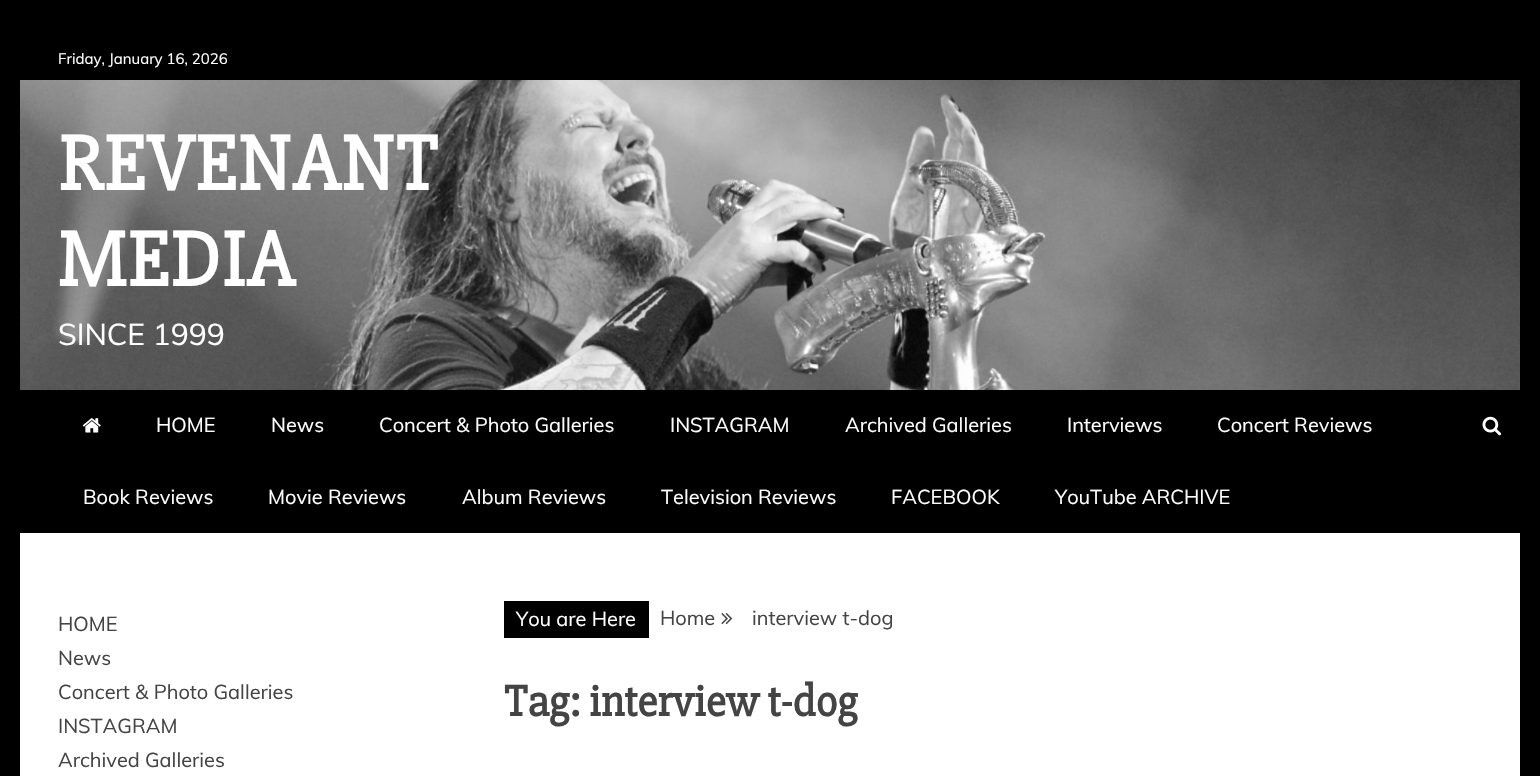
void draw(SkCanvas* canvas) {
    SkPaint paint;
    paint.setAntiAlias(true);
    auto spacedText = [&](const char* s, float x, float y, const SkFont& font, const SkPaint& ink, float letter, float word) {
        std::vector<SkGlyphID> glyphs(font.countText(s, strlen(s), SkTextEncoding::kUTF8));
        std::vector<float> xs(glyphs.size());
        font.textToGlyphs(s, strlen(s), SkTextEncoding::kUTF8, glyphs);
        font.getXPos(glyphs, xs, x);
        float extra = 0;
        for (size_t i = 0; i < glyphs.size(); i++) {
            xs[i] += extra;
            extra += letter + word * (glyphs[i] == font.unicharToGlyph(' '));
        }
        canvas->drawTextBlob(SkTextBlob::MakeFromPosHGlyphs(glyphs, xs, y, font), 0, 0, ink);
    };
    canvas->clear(0xFF000000);
    paint.setColor(0xFFFFFFFF);
    canvas->drawRect(SkRect::MakeXYWH(20, 533, 1500, 243), paint);
    SkFont font1(fontMgr->matchFamilyStyle("Muli", SkFontStyle::Normal()), 15);
    font1.setSubpixel(true);
    canvas->drawString("Friday, January 16, 2026", 58, 64, font1, paint);
    canvas->drawImageRect(SkImages::DeferredFromEncodedData(SkData::MakeFromFileName("img1.png")), SkRect::MakeXYWH(20, 80, 1500, 310), SkSamplingOptions());
    SkFont font2(fontMgr->matchFamilyStyle("Slabo 27px", SkFontStyle::Bold()), 80);
    font2.setSubpixel(true);
    spacedText("REVENANT", 58, 190, font2, paint, 1.25f, 0);
    spacedText("MEDIA", 58, 286, font2, paint, 1.25f, 0);
    SkFont font3(fontMgr->matchFamilyStyle("Muli", SkFontStyle::Normal()), 30);
    font3.setSubpixel(true);
    canvas->drawString("SINCE 1999", 58, 345, font3, paint);
    canvas->drawImageRect(SkImages::DeferredFromEncodedData(SkData::MakeFromFileName("img2.png")), SkRect::MakeXYWH(82, 418, 19, 15), SkSamplingOptions());
    SkFont font4(fontMgr->matchFamilyStyle("Muli", SkFontStyle::Normal()), 20);
    font4.setSubpixel(true);
    canvas->drawString("HOME", 156, 432, font4, paint);
    canvas->drawString("News", 271, 432, font4, paint);
    canvas->drawString("Concert & Photo Galleries", 379, 432, font4, paint);
    canvas->drawString("INSTAGRAM", 670, 432, font4, paint);
    canvas->drawString("Archived Galleries", 845, 432, font4, paint);
    canvas->drawString("Interviews", 1067, 432, font4, paint);
    canvas->drawString("Concert Reviews", 1217, 432, font4, paint);
    canvas->drawString("Book Reviews", 83, 504, font4, paint);
    canvas->drawString("Movie Reviews", 268, 504, font4, paint);
    canvas->drawString("Album Reviews", 462, 504, font4, paint);
    canvas->drawString("Television Reviews", 661, 504, font4, paint);
    canvas->drawString("FACEBOOK", 891, 504, font4, paint);
    canvas->drawString("YouTube ARCHIVE", 1055, 504, font4, paint);
    canvas->drawImageRect(SkImages::DeferredFromEncodedData(SkData::MakeFromFileName("img3.png")), SkRect::MakeXYWH(1482, 416, 19, 20), SkSamplingOptions());
    paint.setColor(0xFF444444);
    canvas->drawString("HOME", 58, 631, font4, paint);
    canvas->drawString("News", 58, 665, font4, paint);
    canvas->drawString("Concert & Photo Galleries", 58, 699, font4, paint);
    canvas->drawString("INSTAGRAM", 58, 733, font4, paint);
    canvas->drawString("Archived Galleries", 58, 767, font4, paint);
    paint.setColor(0xFF000000);
    canvas->drawRect(SkRect::MakeXYWH(504, 601, 145, 37), paint);
    paint.setColor(0xFFFFFFFF);
    canvas->drawString("You are Here", 516, 626, font4, paint);
    paint.setColor(0xFF444444);
    canvas->drawString("Home", 660, 625, font4, paint);
    canvas->drawImageRect(SkImages::DeferredFromEncodedData(SkData::MakeFromFileName("img4.png")), SkRect::MakeXYWH(721, 613, 12, 12), SkSamplingOptions());
    canvas->drawString("interview t-dog", 752, 625, font4, paint);
    SkFont font5(fontMgr->matchFamilyStyle("Slabo 27px", SkFontStyle::Bold()), 45);
    font5.setSubpixel(true);
    canvas->drawString("Tag: interview t-dog", 504, 716, font5, paint);
}
